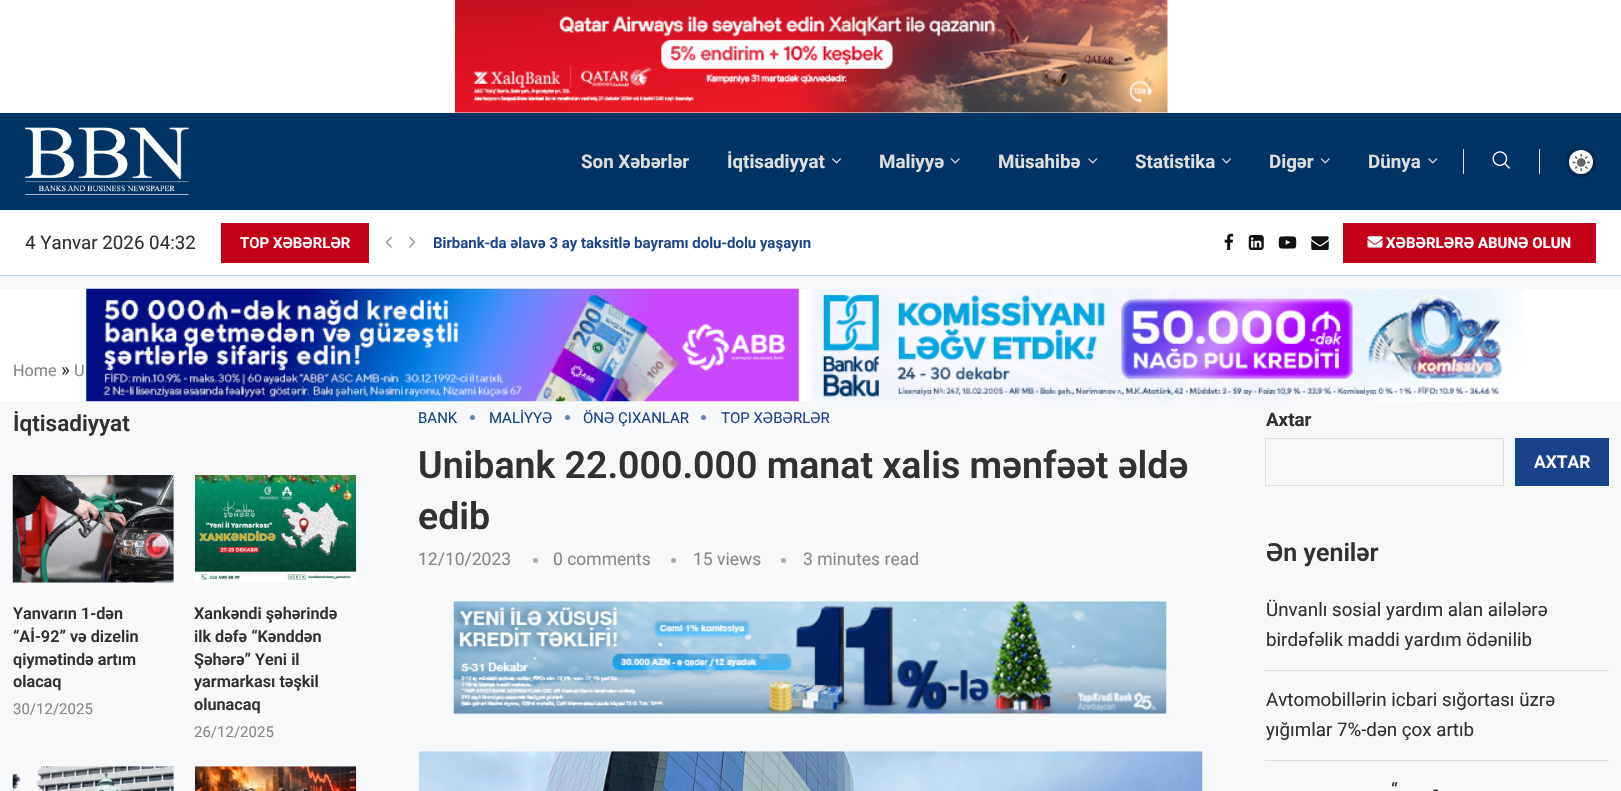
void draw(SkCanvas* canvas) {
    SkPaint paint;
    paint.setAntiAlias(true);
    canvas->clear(0xFFF6F8FA);
    paint.setColor(0xFFFFFFFF);
    canvas->drawRect(SkRect::MakeXYWH(0, 0, 1621, 113), paint);
    canvas->drawImageRect(SkImages::DeferredFromEncodedData(SkData::MakeFromFileName("img1.png")), SkRect::MakeXYWH(455, 0, 713, 113), SkSamplingOptions());
    paint.setColor(0xFF003366);
    canvas->drawRect(SkRect::MakeXYWH(0, 113, 1621, 97), paint);
    canvas->drawImageRect(SkImages::DeferredFromEncodedData(SkData::MakeFromFileName("img2.png")), SkRect::MakeXYWH(25, 127, 164, 68), SkSamplingOptions());
    SkFont font1(fontMgr->matchFamilyStyle("Roboto", SkFontStyle::Bold()), 18.75f);
    font1.setSubpixel(true);
    paint.setColor(0xFFDDDDDD);
    canvas->drawString("Son Xəbərlər", 581, 168, font1, paint);
    canvas->drawString("İqtisadiyyat", 727, 168, font1, paint);
    canvas->drawImageRect(SkImages::DeferredFromEncodedData(SkData::MakeFromFileName("img3.png")), SkRect::MakeXYWH(832, 158, 9, 6), SkSamplingOptions());
    canvas->drawString("Maliyyə", 879, 168, font1, paint);
    canvas->drawImageRect(SkImages::DeferredFromEncodedData(SkData::MakeFromFileName("img4.png")), SkRect::MakeXYWH(950, 158, 10, 6), SkSamplingOptions());
    canvas->drawString("Müsahibə", 998, 168, font1, paint);
    canvas->drawImageRect(SkImages::DeferredFromEncodedData(SkData::MakeFromFileName("img5.png")), SkRect::MakeXYWH(1088, 158, 10, 6), SkSamplingOptions());
    canvas->drawString("Statistika", 1135, 168, font1, paint);
    canvas->drawImageRect(SkImages::DeferredFromEncodedData(SkData::MakeFromFileName("img3.png")), SkRect::MakeXYWH(1222, 158, 9, 6), SkSamplingOptions());
    canvas->drawString("Digər", 1269, 168, font1, paint);
    canvas->drawImageRect(SkImages::DeferredFromEncodedData(SkData::MakeFromFileName("img4.png")), SkRect::MakeXYWH(1320, 158, 10, 6), SkSamplingOptions());
    canvas->drawString("Dünya", 1368, 168, font1, paint);
    canvas->drawImageRect(SkImages::DeferredFromEncodedData(SkData::MakeFromFileName("img5.png")), SkRect::MakeXYWH(1428, 158, 10, 6), SkSamplingOptions());
    paint.setColor(0xFFDEDEDE);
    canvas->drawRect(SkRect::MakeXYWH(1463, 149, 1, 25), paint);
    canvas->drawImageRect(SkImages::DeferredFromEncodedData(SkData::MakeFromFileName("img6.png")), SkRect::MakeXYWH(1492, 151, 18, 18), SkSamplingOptions());
    canvas->drawRect(SkRect::MakeXYWH(1539, 149, 1, 25), paint);
    paint.setColor(0xFF002E5C);
    canvas->drawRoundRect(SkRect::MakeXYWH(1565, 146, 31, 32), 15.5f, 15.5f, paint);
    paint.setColor(0x4D000000);
    paint.setMaskFilter(SkMaskFilter::MakeBlur(kNormal_SkBlurStyle, 2));
    canvas->drawRoundRect(SkRect::MakeXYWH(1569, 151, 24, 24), 12, 12, paint);
    paint.setMaskFilter(nullptr);
    paint.setColor(0xFFFFFFFF);
    canvas->drawCircle(1581, 162, 12, paint);
    canvas->drawImageRect(SkImages::DeferredFromEncodedData(SkData::MakeFromFileName("img7.png")), SkRect::MakeXYWH(1572, 153, 18, 19), SkSamplingOptions());
    canvas->drawRect(SkRect::MakeXYWH(0, 210, 1621, 65), paint);
    paint.setColor(0xFFBAD9F8);
    canvas->drawRect(SkRect::MakeXYWH(0, 275, 1621, 1), paint);
    SkFont font2(fontMgr->matchFamilyStyle("Roboto", SkFontStyle::Normal()), 18.75f);
    font2.setSubpixel(true);
    paint.setColor(0xFF313131);
    canvas->drawString("4 Yanvar 2026 04:32", 25, 249, font2, paint);
    paint.setColor(0xFFC20017);
    canvas->drawRect(SkRect::MakeXYWH(221, 223, 148, 40), paint);
    SkFont font3(fontMgr->matchFamilyStyle("Roboto", SkFontStyle(600, SkFontStyle::kNormal_Width, SkFontStyle::kUpright_Slant)), 15);
    font3.setSubpixel(true);
    paint.setColor(0xFFFFFFFF);
    canvas->drawString("TOP XƏBƏRLƏR", 240, 248, font3, paint);
    canvas->drawImageRect(SkImages::DeferredFromEncodedData(SkData::MakeFromFileName("img8.png")), SkRect::MakeXYWH(385, 236, 7, 12), SkSamplingOptions());
    canvas->drawImageRect(SkImages::DeferredFromEncodedData(SkData::MakeFromFileName("img9.png")), SkRect::MakeXYWH(409, 236, 7, 12), SkSamplingOptions());
    paint.setColor(0xFF1A428A);
    canvas->drawString("Birbank-da əlavə 3 ay taksitlə bayramı dolu-dolu yaşayın", 433, 248, font3, paint);
    canvas->drawImageRect(SkImages::DeferredFromEncodedData(SkData::MakeFromFileName("img10.png")), SkRect::MakeXYWH(1224, 233, 10, 17), SkSamplingOptions());
    canvas->drawImageRect(SkImages::DeferredFromEncodedData(SkData::MakeFromFileName("img11.png")), SkRect::MakeXYWH(1248, 235, 16, 15), SkSamplingOptions());
    canvas->drawImageRect(SkImages::DeferredFromEncodedData(SkData::MakeFromFileName("img12.png")), SkRect::MakeXYWH(1278, 236, 19, 13), SkSamplingOptions());
    canvas->drawImageRect(SkImages::DeferredFromEncodedData(SkData::MakeFromFileName("img13.png")), SkRect::MakeXYWH(1311, 236, 18, 14), SkSamplingOptions());
    paint.setColor(0xFFC20017);
    canvas->drawRect(SkRect::MakeXYWH(1343, 223, 253, 40), paint);
    canvas->drawImageRect(SkImages::DeferredFromEncodedData(SkData::MakeFromFileName("img14.png")), SkRect::MakeXYWH(1367, 236, 16, 12), SkSamplingOptions());
    SkFont font4(fontMgr->matchFamilyStyle("Roboto", SkFontStyle::Bold()), 15);
    font4.setSubpixel(true);
    paint.setColor(0xFFFFFFFF);
    canvas->drawString("XƏBƏRLƏRƏ ABUNƏ OLUN", 1386, 248, font4, paint);
    canvas->drawRect(SkRect::MakeXYWH(0, 289, 1621, 112), paint);
    canvas->drawImageRect(SkImages::DeferredFromEncodedData(SkData::MakeFromFileName("img15.png")), SkRect::MakeXYWH(86, 288, 713, 114), SkSamplingOptions());
    canvas->drawImageRect(SkImages::DeferredFromEncodedData(SkData::MakeFromFileName("img16.png")), SkRect::MakeXYWH(811, 289, 713, 112), SkSamplingOptions());
    SkFont font5(fontMgr->matchFamilyStyle("Roboto", SkFontStyle::Normal()), 16.25f);
    font5.setSubpixel(true);
    paint.setColor(0xFF888888);
    canvas->drawString("Home", 13, 376, font5, paint);
    paint.setColor(0xFF313131);
    canvas->drawString("»", 61, 376, font2, paint);
    paint.setColor(0xFF888888);
    canvas->drawString("U", 74, 376, font5, paint);
    SkFont font6(fontMgr->matchFamilyStyle("Roboto", SkFontStyle(600, SkFontStyle::kNormal_Width, SkFontStyle::kUpright_Slant)), 22.5f);
    font6.setSubpixel(true);
    paint.setColor(0xFF313131);
    canvas->drawString("İqtisadiyyat", 13, 431, font6, paint);
    paint.setColor(0xFFF5F5F5);
    canvas->drawRect(SkRect::MakeXYWH(13, 475, 161, 108), paint);
    canvas->drawImageRect(SkImages::DeferredFromEncodedData(SkData::MakeFromFileName("img17.png")), SkRect::MakeXYWH(12, 475, 162, 108), SkSamplingOptions());
    SkFont font7(fontMgr->matchFamilyStyle("Roboto", SkFontStyle(600, SkFontStyle::kNormal_Width, SkFontStyle::kUpright_Slant)), 16.25f);
    font7.setSubpixel(true);
    paint.setColor(0xFF313131);
    canvas->drawString("Yanvarın 1-dən", 13, 619, font7, paint);
    canvas->drawString("“Aİ-92” və dizelin", 13, 642, font7, paint);
    canvas->drawString("qiymətində artım", 13, 665, font7, paint);
    canvas->drawString("olacaq", 13, 687, font7, paint);
    SkFont font8(fontMgr->matchFamilyStyle("Roboto", SkFontStyle::Normal()), 15);
    font8.setSubpixel(true);
    paint.setColor(0xFF888888);
    canvas->drawString("30/12/2025", 13, 714, font8, paint);
    paint.setColor(0xFFF5F5F5);
    canvas->drawRect(SkRect::MakeXYWH(195, 582, 161, 1), paint);
    canvas->drawImageRect(SkImages::DeferredFromEncodedData(SkData::MakeFromFileName("img18.png")), SkRect::MakeXYWH(195, 475, 162, 108), SkSamplingOptions());
    paint.setColor(0xFF313131);
    canvas->drawString("Xankəndi şəhərində", 194, 619, font7, paint);
    canvas->drawString("ilk dəfə “Kənddən", 194, 642, font7, paint);
    canvas->drawString("Şəhərə” Yeni il", 194, 665, font7, paint);
    canvas->drawString("yarmarkası təşkil", 194, 687, font7, paint);
    canvas->drawString("olunacaq", 194, 710, font7, paint);
    paint.setColor(0xFF888888);
    canvas->drawString("26/12/2025", 194, 737, font8, paint);
    paint.setColor(0xFFF5F5F5);
    canvas->drawRect(SkRect::MakeXYWH(13, 766, 161, 25), paint);
    canvas->drawImageRect(SkImages::DeferredFromEncodedData(SkData::MakeFromFileName("img19.png")), SkRect::MakeXYWH(12, 766, 162, 25), SkSamplingOptions());
    canvas->drawRect(SkRect::MakeXYWH(195, 766, 161, 1), paint);
    canvas->drawImageRect(SkImages::DeferredFromEncodedData(SkData::MakeFromFileName("img20.png")), SkRect::MakeXYWH(195, 766, 162, 25), SkSamplingOptions());
    paint.setColor(0xFF1A428A);
    canvas->drawString("BANK", 418, 423, font8, paint);
    paint.setColor(0xFF6782B1);
    canvas->drawCircle(472.5f, 417.5f, 2.5f, paint);
    paint.setColor(0xFF1A428A);
    canvas->drawString("MALİYYƏ", 489, 423, font8, paint);
    paint.setColor(0xFF6782B1);
    canvas->drawCircle(567.5f, 417.5f, 2.5f, paint);
    paint.setColor(0xFF1A428A);
    canvas->drawString("ÖNƏ ÇIXANLAR", 583, 423, font8, paint);
    paint.setColor(0xFF6782B1);
    canvas->drawCircle(703.5f, 417.5f, 2.5f, paint);
    paint.setColor(0xFF1A428A);
    canvas->drawString("TOP XƏBƏRLƏR", 721, 423, font8, paint);
    SkFont font9(fontMgr->matchFamilyStyle("Roboto", SkFontStyle(600, SkFontStyle::kNormal_Width, SkFontStyle::kUpright_Slant)), 37.5f);
    font9.setSubpixel(true);
    paint.setColor(0xFF313131);
    canvas->drawString("Unibank 22.000.000 manat xalis mənfəət əldə", 418, 478, font9, paint);
    canvas->drawString("edib", 418, 529, font9, paint);
    SkFont font10(fontMgr->matchFamilyStyle("Roboto", SkFontStyle::Normal()), 17.5f);
    font10.setSubpixel(true);
    paint.setColor(0xFF888888);
    canvas->drawString("12/10/2023", 418, 565, font10, paint);
    paint.setColor(0xFFA9AAAA);
    canvas->drawCircle(535.5f, 560.5f, 2.5f, paint);
    paint.setColor(0xFF888888);
    canvas->drawString("0 comments", 553, 565, font10, paint);
    paint.setColor(0xFFA9AAAA);
    canvas->drawCircle(673.5f, 560.5f, 2.5f, paint);
    paint.setColor(0xFF888888);
    canvas->drawString("15 views", 693, 565, font10, paint);
    paint.setColor(0xFFA9AAAA);
    canvas->drawCircle(783.5f, 560.5f, 2.5f, paint);
    paint.setColor(0xFF888888);
    canvas->drawString("3 minutes read", 803, 565, font10, paint);
    canvas->drawImageRect(SkImages::DeferredFromEncodedData(SkData::MakeFromFileName("img21.png")), SkRect::MakeXYWH(453, 601, 714, 113), SkSamplingOptions());
    canvas->drawImageRect(SkImages::DeferredFromEncodedData(SkData::MakeFromFileName("img22.png")), SkRect::MakeXYWH(419, 751, 784, 40), SkSamplingOptions());
    paint.setColor(0xFF313131);
    canvas->drawString("Axtar", 1266, 426, font1, paint);
    paint.setStyle(SkPaint::kStroke_Style);
    paint.setStrokeWidth(1);
    paint.setColor(0xFFDEDEDE);
    canvas->drawRect(SkRect::MakeXYWH(1265.5f, 438.5f, 238, 47), paint);
    paint.setStyle(SkPaint::kFill_Style);
    paint.setColor(0xFF1A428A);
    canvas->drawRect(SkRect::MakeXYWH(1515, 438, 94, 48), paint);
    SkFont font11(fontMgr->matchFamilyStyle("Roboto", SkFontStyle(600, SkFontStyle::kNormal_Width, SkFontStyle::kUpright_Slant)), 17.5f);
    font11.setSubpixel(true);
    paint.setColor(0xFFFFFFFF);
    canvas->drawString("AXTAR", 1534, 468, font11, paint);
    SkFont font12(fontMgr->matchFamilyStyle("Roboto", SkFontStyle(600, SkFontStyle::kNormal_Width, SkFontStyle::kUpright_Slant)), 25);
    font12.setSubpixel(true);
    paint.setColor(0xFF313131);
    canvas->drawString("Ən yenilər", 1266, 561, font12, paint);
    paint.setColor(0xFFDEDEDE);
    canvas->drawRect(SkRect::MakeXYWH(1265, 670, 344, 1), paint);
    paint.setColor(0xFF313131);
    canvas->drawString("Ünvanlı sosial yardım alan ailələrə", 1266, 616, font2, paint);
    canvas->drawString("birdəfəlik maddi yardım ödənilib", 1266, 646, font2, paint);
    paint.setColor(0xFFDEDEDE);
    canvas->drawRect(SkRect::MakeXYWH(1265, 760, 344, 1), paint);
    paint.setColor(0xFF313131);
    canvas->drawString("Avtomobillərin icbari sığortası üzrə", 1266, 706, font2, paint);
    canvas->drawString("yığımlar 7%-dən çox artıb", 1266, 736, font2, paint);
    canvas->drawString("“", 1391, 796, font2, paint);
    canvas->drawString("-", 1433, 796, font2, paint);
}
